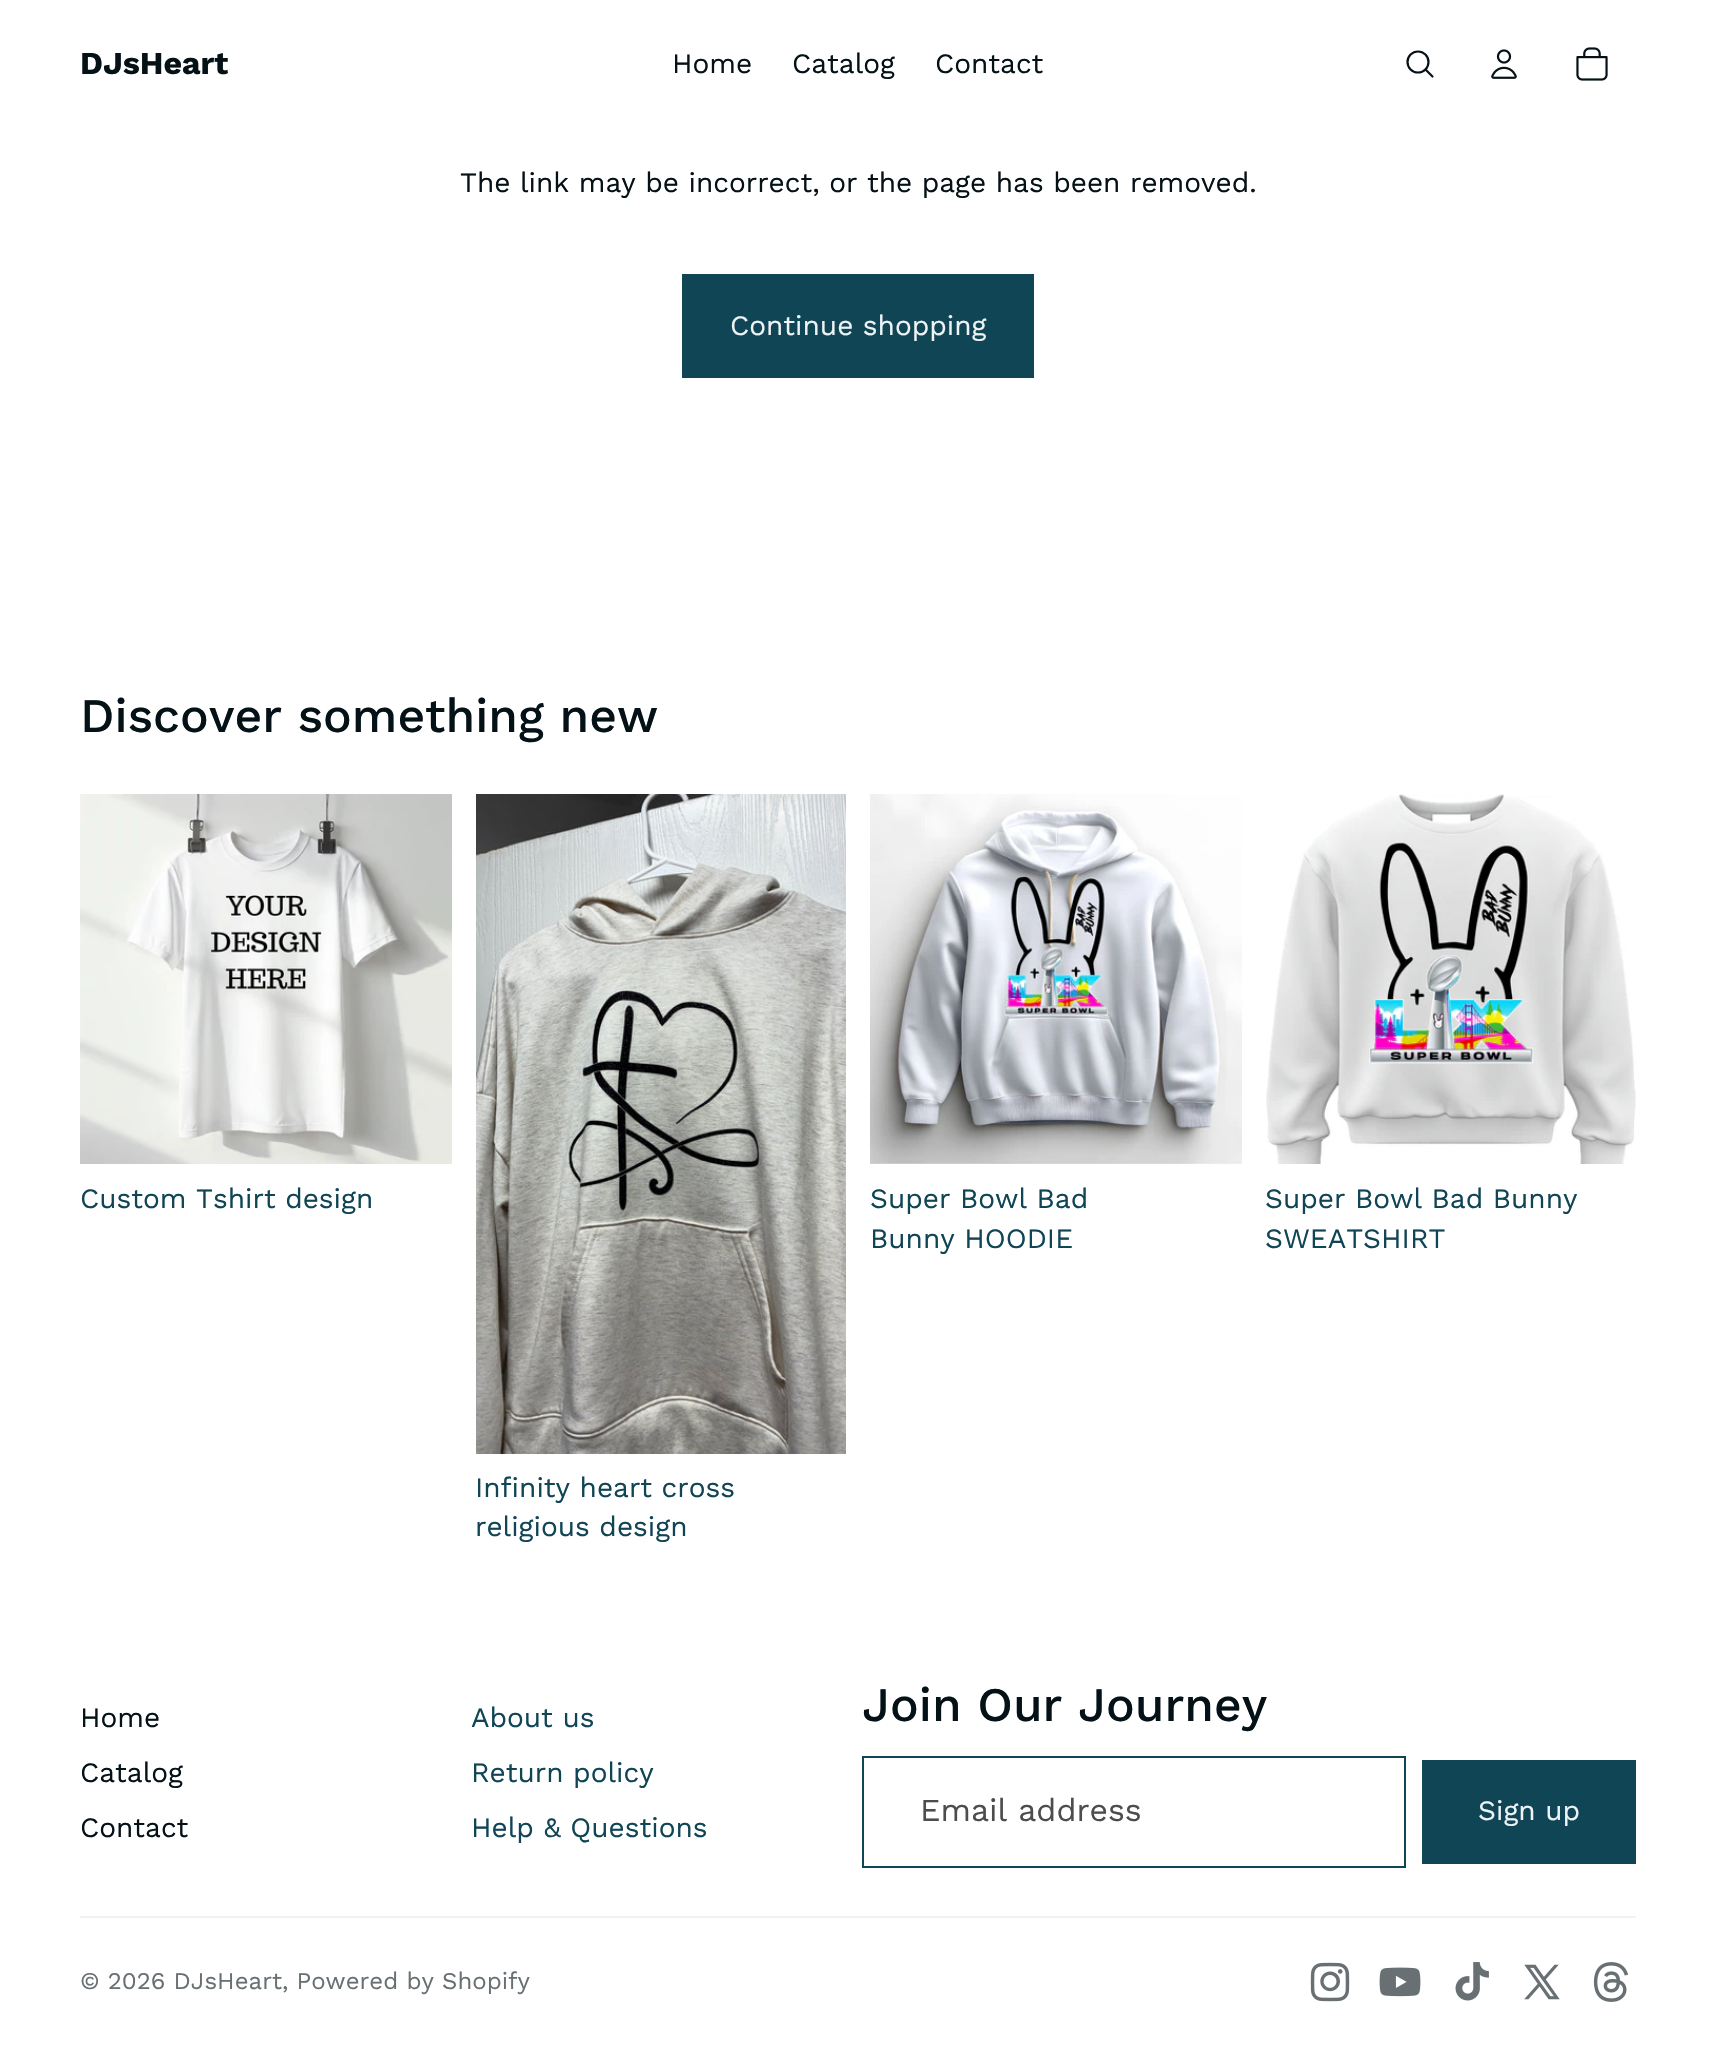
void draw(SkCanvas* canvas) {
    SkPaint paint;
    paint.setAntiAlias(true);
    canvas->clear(0xFFFFFFFF);
    SkFont font1(fontMgr->matchFamilyStyle("Work Sans", SkFontStyle::Bold()), 32);
    font1.setSubpixel(true);
    paint.setColor(0xFF041116);
    canvas->drawString("DJsHeart", 80, 74, font1, paint);
    SkFont font2(fontMgr->matchFamilyStyle("Work Sans", SkFontStyle::Normal()), 28);
    font2.setSubpixel(true);
    canvas->drawString("Home", 672, 73, font2, paint);
    canvas->drawString("Catalog", 792, 73, font2, paint);
    canvas->drawString("Contact", 935, 73, font2, paint);
    paint.setStyle(SkPaint::kStroke_Style);
    paint.setStrokeWidth(2.2f);
    canvas->drawCircle(1418, 62, 10.5f, paint);
    paint.setStrokeCap(SkPaint::kRound_Cap);
    paint.setStrokeJoin(SkPaint::kRound_Join);
    canvas->drawPath(SkPathBuilder().moveTo(1425.5f, 69.5f).lineTo(1432.5f, 76.5f).detach(), paint);
    canvas->drawImageRect(SkImages::DeferredFromEncodedData(SkData::MakeFromFileName("img1.png")), SkRect::MakeXYWH(1491, 49, 26, 30), SkSamplingOptions());
    canvas->drawImageRect(SkImages::DeferredFromEncodedData(SkData::MakeFromFileName("img2.png")), SkRect::MakeXYWH(1576, 47, 32, 34), SkSamplingOptions());
    paint.setStyle(SkPaint::kFill_Style);
    canvas->drawString("The link may be incorrect, or the page has been removed.", 460, 192, font2, paint);
    paint.setColor(0xFF104556);
    canvas->drawRect(SkRect::MakeXYWH(682, 274, 352, 104), paint);
    paint.setColor(0xFFEEF4F6);
    canvas->drawString("Continue shopping", 730, 335, font2, paint);
    SkFont font3(fontMgr->matchFamilyStyle("Work Sans", SkFontStyle(500, SkFontStyle::kNormal_Width, SkFontStyle::kUpright_Slant)), 48);
    font3.setSubpixel(true);
    paint.setColor(0xFF041116);
    canvas->drawString("Discover something new", 80, 732, font3, paint);
    canvas->drawImageRect(SkImages::DeferredFromEncodedData(SkData::MakeFromFileName("img3.png")), SkRect::MakeXYWH(80, 794, 372, 370), SkSamplingOptions());
    paint.setColor(0xFF104556);
    canvas->drawString("Custom Tshirt design", 80, 1208, font2, paint);
    canvas->drawImageRect(SkImages::DeferredFromEncodedData(SkData::MakeFromFileName("img4.png")), SkRect::MakeXYWH(870, 794, 372, 370), SkSamplingOptions());
    canvas->drawString("Super Bowl Bad", 870, 1208, font2, paint);
    canvas->drawString("Bunny HOODIE", 870, 1248, font2, paint);
    canvas->drawImageRect(SkImages::DeferredFromEncodedData(SkData::MakeFromFileName("img5.png")), SkRect::MakeXYWH(1266, 794, 370, 370), SkSamplingOptions());
    canvas->drawString("Super Bowl Bad Bunny", 1265, 1208, font2, paint);
    canvas->drawString("SWEATSHIRT", 1265, 1248, font2, paint);
    canvas->drawImageRect(SkImages::DeferredFromEncodedData(SkData::MakeFromFileName("img6.png")), SkRect::MakeXYWH(476, 794, 370, 660), SkSamplingOptions());
    canvas->drawString("Infinity heart cross", 475, 1497, font2, paint);
    canvas->drawString("religious design", 475, 1536, font2, paint);
    paint.setColor(0xFF041116);
    canvas->drawString("Home", 80, 1727, font2, paint);
    canvas->drawString("Catalog", 80, 1782, font2, paint);
    canvas->drawString("Contact", 80, 1837, font2, paint);
    paint.setColor(0xFF104556);
    canvas->drawString("About us", 471, 1727, font2, paint);
    canvas->drawString("Return policy", 471, 1782, font2, paint);
    canvas->drawString("Help & Questions", 471, 1837, font2, paint);
    paint.setColor(0xFF041116);
    canvas->drawString("Join Our Journey", 862, 1721, font3, paint);
    paint.setStyle(SkPaint::kStroke_Style);
    paint.setStrokeWidth(2);
    paint.setStrokeCap(SkPaint::kButt_Cap);
    paint.setStrokeJoin(SkPaint::kMiter_Join);
    paint.setColor(0xFF104556);
    canvas->drawRect(SkRect::MakeXYWH(863, 1757, 542, 110), paint);
    SkFont font4(fontMgr->matchFamilyStyle("Work Sans", SkFontStyle::Normal()), 32);
    font4.setSubpixel(true);
    paint.setStyle(SkPaint::kFill_Style);
    paint.setColor(0xFF4D4D4D);
    canvas->drawString("Email address", 920, 1821, font4, paint);
    paint.setColor(0xFF104556);
    canvas->drawRect(SkRect::MakeXYWH(1422, 1760, 214, 104), paint);
    paint.setColor(0xFFEEF4F6);
    canvas->drawString("Sign up", 1478, 1820, font2, paint);
    canvas->drawRect(SkRect::MakeXYWH(80, 1916, 1556, 2), paint);
    SkFont font5(fontMgr->matchFamilyStyle("Work Sans", SkFontStyle::Normal()), 24);
    font5.setSubpixel(true);
    paint.setColor(0xFF687073);
    canvas->drawString("© 2026 DJsHeart, Powered by Shopify", 80, 1989, font5, paint);
    canvas->drawImageRect(SkImages::DeferredFromEncodedData(SkData::MakeFromFileName("img7.png")), SkRect::MakeXYWH(1310, 1962, 40, 40), SkSamplingOptions());
    canvas->drawImageRect(SkImages::DeferredFromEncodedData(SkData::MakeFromFileName("img8.png")), SkRect::MakeXYWH(1379, 1967, 42, 30), SkSamplingOptions());
    canvas->drawImageRect(SkImages::DeferredFromEncodedData(SkData::MakeFromFileName("img9.png")), SkRect::MakeXYWH(1455, 1962, 34, 39), SkSamplingOptions());
    canvas->drawImageRect(SkImages::DeferredFromEncodedData(SkData::MakeFromFileName("img10.png")), SkRect::MakeXYWH(1524, 1964, 36, 36), SkSamplingOptions());
    canvas->drawImageRect(SkImages::DeferredFromEncodedData(SkData::MakeFromFileName("img11.png")), SkRect::MakeXYWH(1593, 1962, 36, 40), SkSamplingOptions());
}
